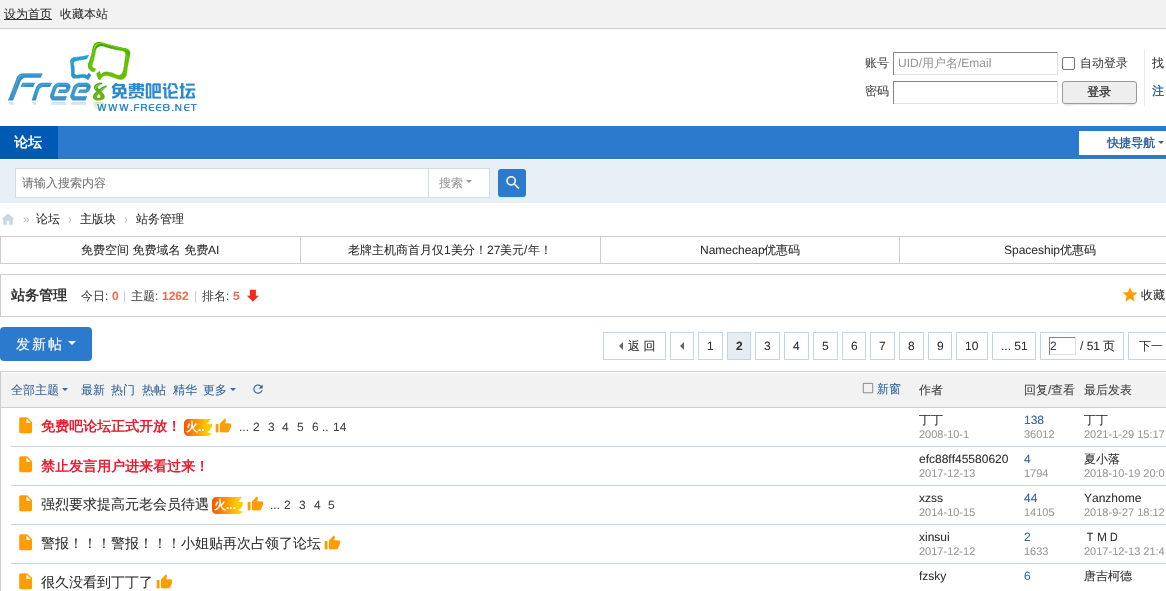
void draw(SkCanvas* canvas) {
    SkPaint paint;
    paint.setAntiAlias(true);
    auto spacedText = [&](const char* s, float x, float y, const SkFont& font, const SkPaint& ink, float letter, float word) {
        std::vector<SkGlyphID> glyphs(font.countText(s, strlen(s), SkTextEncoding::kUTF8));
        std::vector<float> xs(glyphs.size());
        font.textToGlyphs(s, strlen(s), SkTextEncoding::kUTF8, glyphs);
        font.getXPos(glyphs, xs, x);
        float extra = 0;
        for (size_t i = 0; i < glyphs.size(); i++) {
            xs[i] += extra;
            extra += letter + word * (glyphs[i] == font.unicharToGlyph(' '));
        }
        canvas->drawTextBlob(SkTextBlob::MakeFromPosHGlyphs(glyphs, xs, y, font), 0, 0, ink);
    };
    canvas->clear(0xFFFFFFFF);
    paint.setColor(0xFFF2F2F2);
    canvas->drawRect(SkRect::MakeXYWH(0, 0, 1166, 28), paint);
    paint.setColor(0xFFCDCDCD);
    canvas->drawRect(SkRect::MakeXYWH(0, 28, 1166, 1), paint);
    paint.setColor(0xFF333333);
    canvas->drawRect(SkRect::MakeXYWH(4, 19, 48, 1), paint);
    SkFont font1(fontMgr->matchFamilyStyle("WenQuanYi Zen Hei", SkFontStyle(500, SkFontStyle::kNormal_Width, SkFontStyle::kUpright_Slant)), 12);
    font1.setSubpixel(true);
    canvas->drawString("设为首页", 4, 18, font1, paint);
    canvas->drawString("收藏本站", 60, 18, font1, paint);
    canvas->drawImageRect(SkImages::DeferredFromEncodedData(SkData::MakeFromFileName("img1.png")), SkRect::MakeXYWH(8, 42, 189, 69), SkSamplingOptions());
    paint.setColor(0xFF444444);
    canvas->drawString("账号", 865, 67, font1, paint);
    paint.setColor(0xFF848484);
    canvas->drawRect(SkRect::MakeXYWH(893, 52, 165, 1), paint);
    paint.setColor(0xFFE0E0E0);
    canvas->drawRect(SkRect::MakeXYWH(1057, 52, 1, 23), paint);
    canvas->drawRect(SkRect::MakeXYWH(893, 74, 165, 1), paint);
    paint.setColor(0xFF848484);
    canvas->drawRect(SkRect::MakeXYWH(893, 52, 1, 23), paint);
    SkFont font2(fontMgr->matchFamilyStyle("Liberation Sans", SkFontStyle::Normal()), 12);
    font2.setSubpixel(true);
    paint.setColor(0xFF999999);
    canvas->drawString("UID/", 898, 67, font2, paint);
    canvas->drawString("用户名", 922, 67, font1, paint);
    canvas->drawString("/Email", 958, 67, font2, paint);
    paint.setStyle(SkPaint::kStroke_Style);
    paint.setStrokeWidth(1);
    paint.setColor(0xFF767676);
    canvas->drawRoundRect(SkRect::MakeXYWH(1062.5f, 57.5f, 12, 12), 1.5f, 1.5f, paint);
    paint.setStyle(SkPaint::kFill_Style);
    paint.setColor(0xFF444444);
    canvas->drawString("自动登录", 1080, 67, font1, paint);
    paint.setColor(0xFF333333);
    canvas->drawString("找", 1152, 67, font1, paint);
    paint.setColor(0xFF444444);
    canvas->drawString("密码", 865, 95, font1, paint);
    paint.setColor(0xFF848484);
    canvas->drawRect(SkRect::MakeXYWH(893, 81, 165, 1), paint);
    paint.setColor(0xFFE0E0E0);
    canvas->drawRect(SkRect::MakeXYWH(1057, 81, 1, 23), paint);
    canvas->drawRect(SkRect::MakeXYWH(893, 103, 165, 1), paint);
    paint.setColor(0xFF848484);
    canvas->drawRect(SkRect::MakeXYWH(893, 81, 1, 23), paint);
    paint.setColor(0xFFE5EDF2);
    canvas->drawRect(SkRect::MakeXYWH(1144, 49, 1, 57), paint);
    paint.setColor(0xFFE5E5E5);
    canvas->drawPath(SkPathBuilder().moveTo(1062, 101).cubicTo(1062, 108, 1072, 105, 1076, 105).lineTo(1122, 105).cubicTo(1127, 105, 1137, 108, 1137, 101).cubicTo(1137, 103, 1136, 104, 1134, 104).lineTo(1065, 104).cubicTo(1063, 104, 1062, 103, 1062, 101).close().detach(), paint);
    paint.setColor(0xFFEEEEEE);
    canvas->drawRoundRect(SkRect::MakeXYWH(1062.5f, 81.5f, 74, 22), 2.5f, 2.5f, paint);
    paint.setStyle(SkPaint::kStroke_Style);
    paint.setColor(0xFF999999);
    canvas->drawRoundRect(SkRect::MakeXYWH(1062.5f, 81.5f, 74, 22), 2.5f, 2.5f, paint);
    SkFont font3(fontMgr->matchFamilyStyle("WenQuanYi Zen Hei", SkFontStyle::Bold()), 12);
    font3.setSubpixel(true);
    paint.setStyle(SkPaint::kFill_Style);
    paint.setColor(0xFF444444);
    canvas->drawString("登录", 1087, 96, font3, paint);
    paint.setColor(0xFF336699);
    canvas->drawString("注", 1152, 95, font3, paint);
    paint.setColor(0xFF2B7ACD);
    canvas->drawRect(SkRect::MakeXYWH(58, 126, 1108, 33), paint);
    paint.setColor(0xFF005AB4);
    canvas->drawRect(SkRect::MakeXYWH(0, 126, 58, 33), paint);
    SkFont font4(fontMgr->matchFamilyStyle("WenQuanYi Zen Hei", SkFontStyle::Bold()), 14);
    font4.setSubpixel(true);
    paint.setColor(0xFFFFFFFF);
    canvas->drawString("论坛", 14, 147, font4, paint);
    canvas->drawRect(SkRect::MakeXYWH(1079, 131, 87, 24), paint);
    paint.setColor(0xFF336699);
    canvas->drawString("快捷导航", 1107, 147, font3, paint);
    canvas->drawPath(SkPathBuilder().moveTo(1158, 141).lineTo(1164, 141).lineTo(1161, 144).close().detach(), paint);
    paint.setColor(0xFFE8EFF5);
    canvas->drawRect(SkRect::MakeXYWH(0, 160, 1166, 43), paint);
    paint.setColor(0xFFCFDEE3);
    canvas->drawRect(SkRect::MakeXYWH(427, 168, 63, 1), paint);
    canvas->drawRect(SkRect::MakeXYWH(489, 168, 1, 30), paint);
    canvas->drawRect(SkRect::MakeXYWH(427, 197, 63, 1), paint);
    paint.setColor(0xFFFFFFFF);
    canvas->drawRect(SkRect::MakeXYWH(15.5f, 168.5f, 413, 29), paint);
    paint.setStyle(SkPaint::kStroke_Style);
    paint.setColor(0xFFCFDEE3);
    canvas->drawRect(SkRect::MakeXYWH(15.5f, 168.5f, 413, 29), paint);
    paint.setStyle(SkPaint::kFill_Style);
    paint.setColor(0xFF757575);
    canvas->drawString("请输入搜索内容", 22, 187, font1, paint);
    paint.setColor(0xFFFFFFFF);
    canvas->drawRect(SkRect::MakeXYWH(429, 169, 60, 28), paint);
    paint.setColor(0xFF999999);
    canvas->drawString("搜索", 439, 187, font1, paint);
    canvas->drawPath(SkPathBuilder().moveTo(466, 180).lineTo(472, 180).lineTo(469, 183).close().detach(), paint);
    paint.setColor(0xFFE5E5E5);
    canvas->drawPath(SkPathBuilder().moveTo(498, 194).cubicTo(498, 198.5f, 501, 198, 504.5f, 198).lineTo(519.5f, 198).cubicTo(523, 198, 526, 198.5f, 526, 194).cubicTo(526, 195.5f, 524.5f, 197, 523, 197).lineTo(501, 197).cubicTo(499.5f, 197, 498, 195.5f, 498, 194).close().detach(), paint);
    paint.setColor(0xFF2B7ACD);
    canvas->drawRoundRect(SkRect::MakeXYWH(498, 169, 28, 28), 3, 3, paint);
    canvas->drawImageRect(SkImages::DeferredFromEncodedData(SkData::MakeFromFileName("img2.png")), SkRect::MakeXYWH(506, 176, 14, 13), SkSamplingOptions());
    canvas->drawImageRect(SkImages::DeferredFromEncodedData(SkData::MakeFromFileName("img3.png")), SkRect::MakeXYWH(1, 213, 14, 12), SkSamplingOptions());
    paint.setColor(0xFFBDBDBD);
    canvas->drawString("»", 23, 223, font2, paint);
    paint.setColor(0xFF333333);
    canvas->drawString("论坛", 36, 223, font1, paint);
    paint.setColor(0xFFBDBDBD);
    canvas->drawString("›", 68, 223, font2, paint);
    paint.setColor(0xFF333333);
    canvas->drawString("主版块", 80, 223, font1, paint);
    paint.setColor(0xFFBDBDBD);
    canvas->drawString("›", 124, 223, font2, paint);
    paint.setColor(0xFF333333);
    canvas->drawString("站务管理", 136, 223, font1, paint);
    paint.setColor(0xFFCDCDCD);
    canvas->drawRect(SkRect::MakeXYWH(899, 236, 267, 1), paint);
    canvas->drawRect(SkRect::MakeXYWH(899, 263, 267, 1), paint);
    canvas->drawRect(SkRect::MakeXYWH(899, 236, 1, 28), paint);
    canvas->drawRect(SkRect::MakeXYWH(600, 236, 300, 1), paint);
    canvas->drawRect(SkRect::MakeXYWH(600, 263, 300, 1), paint);
    canvas->drawRect(SkRect::MakeXYWH(600, 236, 1, 28), paint);
    canvas->drawRect(SkRect::MakeXYWH(300, 236, 301, 1), paint);
    canvas->drawRect(SkRect::MakeXYWH(300, 263, 301, 1), paint);
    canvas->drawRect(SkRect::MakeXYWH(300, 236, 1, 28), paint);
    canvas->drawRect(SkRect::MakeXYWH(0, 236, 301, 1), paint);
    canvas->drawRect(SkRect::MakeXYWH(0, 263, 301, 1), paint);
    canvas->drawRect(SkRect::MakeXYWH(0, 236, 1, 28), paint);
    paint.setColor(0xFF333333);
    canvas->drawString("免费空间 免费域名 免费", 81, 254, font1, paint);
    canvas->drawString("AI", 208, 254, font2, paint);
    canvas->drawString("老牌主机商首月仅", 348, 254, font1, paint);
    canvas->drawString("1", 444, 254, font2, paint);
    canvas->drawString("美分！", 451, 254, font1, paint);
    canvas->drawString("27", 487, 254, font2, paint);
    canvas->drawString("美元", 500, 254, font1, paint);
    canvas->drawString("/", 524, 254, font2, paint);
    canvas->drawString("年！", 528, 254, font1, paint);
    canvas->drawString("Namecheap", 700, 254, font2, paint);
    canvas->drawString("优惠码", 764, 254, font1, paint);
    canvas->drawString("Spaceship", 1004, 254, font2, paint);
    canvas->drawString("优惠码", 1060, 254, font1, paint);
    paint.setStyle(SkPaint::kStroke_Style);
    paint.setColor(0xFFCDCDCD);
    canvas->drawRect(SkRect::MakeXYWH(0.5f, 274.5f, 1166, 42), paint);
    paint.setStyle(SkPaint::kFill_Style);
    paint.setColor(0xFF333333);
    canvas->drawString("站务管理", 11, 300, font4, paint);
    paint.setColor(0xFF444444);
    canvas->drawString("今日", 81, 300, font1, paint);
    canvas->drawString(":", 105, 300, font2, paint);
    SkFont font5(fontMgr->matchFamilyStyle("Liberation Sans", SkFontStyle::Bold()), 12);
    font5.setSubpixel(true);
    paint.setColor(0xFFF26C4F);
    canvas->drawString("0", 112, 300, font5, paint);
    paint.setColor(0xFFCCCCCC);
    canvas->drawString("|", 123, 300, font2, paint);
    paint.setColor(0xFF444444);
    canvas->drawString("主题", 131, 300, font1, paint);
    canvas->drawString(":", 155, 300, font2, paint);
    paint.setColor(0xFFF26C4F);
    canvas->drawString("1262", 162, 300, font5, paint);
    paint.setColor(0xFFCCCCCC);
    canvas->drawString("|", 194, 300, font2, paint);
    paint.setColor(0xFF444444);
    canvas->drawString("排名", 202, 300, font1, paint);
    canvas->drawString(":", 226, 300, font2, paint);
    paint.setColor(0xFFF26C4F);
    canvas->drawString("5", 233, 300, font5, paint);
    canvas->drawImageRect(SkImages::DeferredFromEncodedData(SkData::MakeFromFileName("img4.png")), SkRect::MakeXYWH(247, 289, 12, 13), SkSamplingOptions());
    canvas->drawImageRect(SkImages::DeferredFromEncodedData(SkData::MakeFromFileName("img5.png")), SkRect::MakeXYWH(1122, 287, 16, 15), SkSamplingOptions());
    paint.setColor(0xFF333333);
    canvas->drawString("收藏", 1141, 299, font1, paint);
    paint.setColor(0xFF2B7ACD);
    canvas->drawRoundRect(SkRect::MakeXYWH(0, 327, 92, 34), 4, 4, paint);
    SkFont font6(fontMgr->matchFamilyStyle("WenQuanYi Zen Hei", SkFontStyle(500, SkFontStyle::kNormal_Width, SkFontStyle::kUpright_Slant)), 14);
    font6.setSubpixel(true);
    paint.setColor(0xFFFFFFFF);
    spacedText("发新帖", 16, 349, font6, paint, 2, 0);
    canvas->drawPath(SkPathBuilder().moveTo(68, 341).lineTo(76, 341).lineTo(72, 345).close().detach(), paint);
    paint.setStyle(SkPaint::kStroke_Style);
    paint.setColor(0xFFC2D5E3);
    canvas->drawRect(SkRect::MakeXYWH(603.5f, 332.5f, 62, 27), paint);
    paint.setStyle(SkPaint::kFill_Style);
    paint.setColor(0xFF666666);
    canvas->drawPath(SkPathBuilder().moveTo(623, 342).lineTo(623, 350).lineTo(619, 346).close().detach(), paint);
    paint.setColor(0xFF333333);
    canvas->drawString("返 回", 628, 350, font1, paint);
    paint.setStyle(SkPaint::kStroke_Style);
    paint.setColor(0xFFC2D5E3);
    canvas->drawRect(SkRect::MakeXYWH(670.5f, 332.5f, 23, 27), paint);
    paint.setStyle(SkPaint::kFill_Style);
    paint.setColor(0xFF666666);
    canvas->drawPath(SkPathBuilder().moveTo(684, 342).lineTo(684, 350).lineTo(680, 346).close().detach(), paint);
    paint.setStyle(SkPaint::kStroke_Style);
    paint.setColor(0xFFC2D5E3);
    canvas->drawRect(SkRect::MakeXYWH(698.5f, 332.5f, 24, 27), paint);
    paint.setStyle(SkPaint::kFill_Style);
    paint.setColor(0xFF333333);
    canvas->drawString("1", 707, 350, font2, paint);
    paint.setColor(0xFFE5EDF2);
    canvas->drawRect(SkRect::MakeXYWH(727.5f, 332.5f, 23, 27), paint);
    paint.setStyle(SkPaint::kStroke_Style);
    paint.setColor(0xFFC2D5E3);
    canvas->drawRect(SkRect::MakeXYWH(727.5f, 332.5f, 23, 27), paint);
    paint.setStyle(SkPaint::kFill_Style);
    paint.setColor(0xFF333333);
    canvas->drawString("2", 736, 350, font5, paint);
    paint.setStyle(SkPaint::kStroke_Style);
    paint.setColor(0xFFC2D5E3);
    canvas->drawRect(SkRect::MakeXYWH(755.5f, 332.5f, 24, 27), paint);
    paint.setStyle(SkPaint::kFill_Style);
    paint.setColor(0xFF333333);
    canvas->drawString("3", 764, 350, font2, paint);
    paint.setStyle(SkPaint::kStroke_Style);
    paint.setColor(0xFFC2D5E3);
    canvas->drawRect(SkRect::MakeXYWH(784.5f, 332.5f, 24, 27), paint);
    paint.setStyle(SkPaint::kFill_Style);
    paint.setColor(0xFF333333);
    canvas->drawString("4", 793, 350, font2, paint);
    paint.setStyle(SkPaint::kStroke_Style);
    paint.setColor(0xFFC2D5E3);
    canvas->drawRect(SkRect::MakeXYWH(813.5f, 332.5f, 24, 27), paint);
    paint.setStyle(SkPaint::kFill_Style);
    paint.setColor(0xFF333333);
    canvas->drawString("5", 822, 350, font2, paint);
    paint.setStyle(SkPaint::kStroke_Style);
    paint.setColor(0xFFC2D5E3);
    canvas->drawRect(SkRect::MakeXYWH(842.5f, 332.5f, 23, 27), paint);
    paint.setStyle(SkPaint::kFill_Style);
    paint.setColor(0xFF333333);
    canvas->drawString("6", 851, 350, font2, paint);
    paint.setStyle(SkPaint::kStroke_Style);
    paint.setColor(0xFFC2D5E3);
    canvas->drawRect(SkRect::MakeXYWH(870.5f, 332.5f, 24, 27), paint);
    paint.setStyle(SkPaint::kFill_Style);
    paint.setColor(0xFF333333);
    canvas->drawString("7", 879, 350, font2, paint);
    paint.setStyle(SkPaint::kStroke_Style);
    paint.setColor(0xFFC2D5E3);
    canvas->drawRect(SkRect::MakeXYWH(899.5f, 332.5f, 24, 27), paint);
    paint.setStyle(SkPaint::kFill_Style);
    paint.setColor(0xFF333333);
    canvas->drawString("8", 908, 350, font2, paint);
    paint.setStyle(SkPaint::kStroke_Style);
    paint.setColor(0xFFC2D5E3);
    canvas->drawRect(SkRect::MakeXYWH(928.5f, 332.5f, 23, 27), paint);
    paint.setStyle(SkPaint::kFill_Style);
    paint.setColor(0xFF333333);
    canvas->drawString("9", 937, 350, font2, paint);
    paint.setStyle(SkPaint::kStroke_Style);
    paint.setColor(0xFFC2D5E3);
    canvas->drawRect(SkRect::MakeXYWH(956.5f, 332.5f, 31, 27), paint);
    paint.setStyle(SkPaint::kFill_Style);
    paint.setColor(0xFF333333);
    canvas->drawString("10", 965, 350, font2, paint);
    paint.setStyle(SkPaint::kStroke_Style);
    paint.setColor(0xFFC2D5E3);
    canvas->drawRect(SkRect::MakeXYWH(992.5f, 332.5f, 43, 27), paint);
    paint.setStyle(SkPaint::kFill_Style);
    paint.setColor(0xFF333333);
    canvas->drawString("... 51", 1001, 350, font2, paint);
    paint.setStyle(SkPaint::kStroke_Style);
    paint.setColor(0xFFC2D5E3);
    canvas->drawRect(SkRect::MakeXYWH(1040.5f, 332.5f, 83, 27), paint);
    paint.setStyle(SkPaint::kFill_Style);
    paint.setColor(0xFF848484);
    canvas->drawRect(SkRect::MakeXYWH(1049, 337, 27, 1), paint);
    paint.setColor(0xFFE0E0E0);
    canvas->drawRect(SkRect::MakeXYWH(1075, 337, 1, 18), paint);
    canvas->drawRect(SkRect::MakeXYWH(1049, 354, 27, 1), paint);
    paint.setColor(0xFF848484);
    canvas->drawRect(SkRect::MakeXYWH(1049, 337, 1, 18), paint);
    paint.setColor(0xFF444444);
    canvas->drawString("2", 1050, 350, font2, paint);
    paint.setColor(0xFF333333);
    canvas->drawString("/ 51", 1080, 350, font2, paint);
    canvas->drawString("页", 1103, 350, font1, paint);
    paint.setStyle(SkPaint::kStroke_Style);
    paint.setColor(0xFFC2D5E3);
    canvas->drawRect(SkRect::MakeXYWH(1128.5f, 332.5f, 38, 27), paint);
    paint.setStyle(SkPaint::kFill_Style);
    paint.setColor(0xFF333333);
    canvas->drawString("下一", 1139, 350, font1, paint);
    paint.setStyle(SkPaint::kStroke_Style);
    paint.setColor(0xFFCDCDCD);
    canvas->drawRect(SkRect::MakeXYWH(0.5f, 371.5f, 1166, 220), paint);
    paint.setStyle(SkPaint::kFill_Style);
    paint.setColor(0xFFF2F2F2);
    canvas->drawRect(SkRect::MakeXYWH(1, 373, 1165, 34), paint);
    paint.setColor(0xFFCDCDCD);
    canvas->drawRect(SkRect::MakeXYWH(1, 407, 1165, 1), paint);
    paint.setColor(0xFF336699);
    canvas->drawString("全部主题", 11, 394, font1, paint);
    canvas->drawPath(SkPathBuilder().moveTo(62, 388).lineTo(68, 388).lineTo(65, 391).close().detach(), paint);
    canvas->drawString("最新", 81, 394, font1, paint);
    canvas->drawString("热门", 111, 394, font1, paint);
    canvas->drawString("热帖", 142, 394, font1, paint);
    canvas->drawString("精华", 173, 394, font1, paint);
    canvas->drawString("更多", 203, 394, font1, paint);
    canvas->drawPath(SkPathBuilder().moveTo(230, 388).lineTo(236, 388).lineTo(233, 391).close().detach(), paint);
    canvas->drawImageRect(SkImages::DeferredFromEncodedData(SkData::MakeFromFileName("img6.png")), SkRect::MakeXYWH(253, 384, 10, 10), SkSamplingOptions());
    canvas->drawImageRect(SkImages::DeferredFromEncodedData(SkData::MakeFromFileName("img7.png")), SkRect::MakeXYWH(862, 382, 12, 12), SkSamplingOptions());
    canvas->drawString("新窗", 877, 393, font1, paint);
    paint.setColor(0xFF444444);
    canvas->drawString("作者", 919, 394, font1, paint);
    canvas->drawString("回复", 1024, 394, font1, paint);
    canvas->drawString("/", 1048, 394, font2, paint);
    canvas->drawString("查看", 1051, 394, font1, paint);
    canvas->drawString("最后发表", 1084, 394, font1, paint);
    paint.setColor(0xFF333333);
    canvas->drawString("丁丁", 919, 424, font1, paint);
    SkFont font7(fontMgr->matchFamilyStyle("Liberation Sans", SkFontStyle::Normal()), 11);
    font7.setSubpixel(true);
    paint.setColor(0xFF999999);
    canvas->drawString("2008-10-1", 919, 438, font7, paint);
    paint.setColor(0xFF336699);
    canvas->drawString("138", 1024, 424, font2, paint);
    paint.setColor(0xFF999999);
    canvas->drawString("36012", 1024, 438, font7, paint);
    paint.setColor(0xFF333333);
    canvas->drawString("丁丁", 1084, 424, font1, paint);
    paint.setColor(0xFF999999);
    canvas->drawString("2021-1-29 15:17", 1084, 438, font7, paint);
    paint.setColor(0xFFC2D5E3);
    canvas->drawRect(SkRect::MakeXYWH(11, 446, 1155, 1), paint);
    canvas->drawImageRect(SkImages::DeferredFromEncodedData(SkData::MakeFromFileName("img8.png")), SkRect::MakeXYWH(19, 417, 13, 17), SkSamplingOptions());
    paint.setColor(0xFFEE1B2E);
    canvas->drawString("免费吧论坛正式开放！", 41, 431, font4, paint);
    {
        const SkColor colors[] = {0xFFFA5600, 0xFFFFCC00};
        const float stops[] = {0, 1};
        const SkPoint ends[] = {{184, 428}, {207, 428}};
        paint.setShader(SkGradientShader::MakeLinear(ends, colors, stops, 2, SkTileMode::kClamp));
        paint.setAlpha(255);
    }
    canvas->drawPath(SkPathBuilder().moveTo(188, 419).lineTo(207, 419).lineTo(207, 436).lineTo(188, 436).cubicTo(186, 436, 184, 434, 184, 432).lineTo(184, 423).cubicTo(184, 421, 186, 419, 188, 419).close().detach(), paint);
    paint.setShader(nullptr);
    paint.setColor(0xFFFFFFFF);
    canvas->drawString("火", 186, 431, font3, paint);
    canvas->drawString("..", 198, 431, font5, paint);
    canvas->drawImageRect(SkImages::DeferredFromEncodedData(SkData::MakeFromFileName("img9.png")), SkRect::MakeXYWH(207, 419, 5, 17), SkSamplingOptions());
    canvas->drawImageRect(SkImages::DeferredFromEncodedData(SkData::MakeFromFileName("img10.png")), SkRect::MakeXYWH(215, 418, 17, 15), SkSamplingOptions());
    paint.setColor(0xFF444444);
    canvas->drawString("...", 239, 431, font2, paint);
    canvas->drawString("2", 253, 431, font2, paint);
    canvas->drawString("3", 268, 431, font2, paint);
    canvas->drawString("4", 282, 431, font2, paint);
    canvas->drawString("5", 297, 431, font2, paint);
    canvas->drawString("6", 312, 431, font2, paint);
    canvas->drawString("..", 322, 431, font2, paint);
    canvas->drawString("14", 333, 431, font2, paint);
    paint.setColor(0xFF333333);
    canvas->drawString("efc88ff45580620", 919, 463, font2, paint);
    paint.setColor(0xFF999999);
    canvas->drawString("2017-12-13", 919, 477, font7, paint);
    paint.setColor(0xFF336699);
    canvas->drawString("4", 1024, 463, font2, paint);
    paint.setColor(0xFF999999);
    canvas->drawString("1794", 1024, 477, font7, paint);
    paint.setColor(0xFF333333);
    canvas->drawString("夏小落", 1084, 463, font1, paint);
    paint.setColor(0xFF999999);
    canvas->drawString("2018-10-19 20:0", 1084, 477, font7, paint);
    paint.setColor(0xFFC2D5E3);
    canvas->drawRect(SkRect::MakeXYWH(11, 485, 1155, 1), paint);
    canvas->drawImageRect(SkImages::DeferredFromEncodedData(SkData::MakeFromFileName("img8.png")), SkRect::MakeXYWH(19, 456, 13, 17), SkSamplingOptions());
    paint.setColor(0xFFEE1B2E);
    canvas->drawString("禁止发言用户进来看过来！", 41, 471, font4, paint);
    paint.setColor(0xFF336699);
    canvas->drawString("44", 1024, 502, font2, paint);
    paint.setColor(0xFF999999);
    canvas->drawString("14105", 1024, 516, font7, paint);
    paint.setColor(0xFF333333);
    canvas->drawString("Yanzhome", 1084, 502, font2, paint);
    paint.setColor(0xFF999999);
    canvas->drawString("2018-9-27 18:12", 1084, 516, font7, paint);
    paint.setColor(0xFFC2D5E3);
    canvas->drawRect(SkRect::MakeXYWH(11, 524, 1155, 1), paint);
    canvas->drawImageRect(SkImages::DeferredFromEncodedData(SkData::MakeFromFileName("img8.png")), SkRect::MakeXYWH(19, 495, 13, 17), SkSamplingOptions());
    paint.setColor(0xFF333333);
    canvas->drawString("强烈要求提高元老会员待遇", 41, 509, font6, paint);
    {
        const SkColor colors[] = {0xFFFA5600, 0xFFFFCC00};
        const float stops[] = {0, 1};
        const SkPoint ends[] = {{212, 506}, {238, 506}};
        paint.setShader(SkGradientShader::MakeLinear(ends, colors, stops, 2, SkTileMode::kClamp));
        paint.setAlpha(255);
    }
    canvas->drawPath(SkPathBuilder().moveTo(216, 497).lineTo(238, 497).lineTo(238, 514).lineTo(216, 514).cubicTo(214, 514, 212, 512, 212, 510).lineTo(212, 501).cubicTo(212, 499, 214, 497, 216, 497).close().detach(), paint);
    paint.setShader(nullptr);
    paint.setColor(0xFFFFFFFF);
    canvas->drawString("火", 214, 509, font3, paint);
    canvas->drawString("...", 226, 509, font5, paint);
    canvas->drawImageRect(SkImages::DeferredFromEncodedData(SkData::MakeFromFileName("img9.png")), SkRect::MakeXYWH(238, 497, 5, 17), SkSamplingOptions());
    canvas->drawImageRect(SkImages::DeferredFromEncodedData(SkData::MakeFromFileName("img10.png")), SkRect::MakeXYWH(247, 496, 17, 15), SkSamplingOptions());
    paint.setColor(0xFF444444);
    canvas->drawString("...", 270, 509, font2, paint);
    canvas->drawString("2", 284, 509, font2, paint);
    canvas->drawString("3", 299, 509, font2, paint);
    canvas->drawString("4", 314, 509, font2, paint);
    canvas->drawString("5", 328, 509, font2, paint);
    paint.setColor(0xFF333333);
    canvas->drawString("xzss", 919, 502, font2, paint);
    paint.setColor(0xFF999999);
    canvas->drawString("2014-10-15", 919, 516, font7, paint);
    paint.setColor(0xFF333333);
    canvas->drawString("xinsui", 919, 541, font2, paint);
    paint.setColor(0xFF999999);
    canvas->drawString("2017-12-12", 919, 555, font7, paint);
    paint.setColor(0xFF336699);
    canvas->drawString("2", 1024, 541, font2, paint);
    paint.setColor(0xFF999999);
    canvas->drawString("1633", 1024, 555, font7, paint);
    paint.setColor(0xFF333333);
    canvas->drawString("ＴＭＤ", 1084, 541, font1, paint);
    paint.setColor(0xFF999999);
    canvas->drawString("2017-12-13 21:4", 1084, 555, font7, paint);
    paint.setColor(0xFFC2D5E3);
    canvas->drawRect(SkRect::MakeXYWH(11, 563, 1155, 1), paint);
    canvas->drawImageRect(SkImages::DeferredFromEncodedData(SkData::MakeFromFileName("img8.png")), SkRect::MakeXYWH(19, 534, 13, 17), SkSamplingOptions());
    paint.setColor(0xFF333333);
    canvas->drawString("警报！！！警报！！！小姐贴再次占领了论坛", 41, 548, font6, paint);
    canvas->drawImageRect(SkImages::DeferredFromEncodedData(SkData::MakeFromFileName("img10.png")), SkRect::MakeXYWH(324, 535, 17, 15), SkSamplingOptions());
    canvas->drawImageRect(SkImages::DeferredFromEncodedData(SkData::MakeFromFileName("img8.png")), SkRect::MakeXYWH(19, 573, 13, 17), SkSamplingOptions());
    canvas->drawString("很久没看到丁丁了", 41, 587, font6, paint);
    canvas->drawImageRect(SkImages::DeferredFromEncodedData(SkData::MakeFromFileName("img10.png")), SkRect::MakeXYWH(156, 574, 17, 15), SkSamplingOptions());
    canvas->drawString("fzsky", 919, 580, font2, paint);
    paint.setColor(0xFF336699);
    canvas->drawString("6", 1024, 580, font2, paint);
    paint.setColor(0xFF333333);
    canvas->drawString("唐吉柯德", 1084, 580, font1, paint);
}
